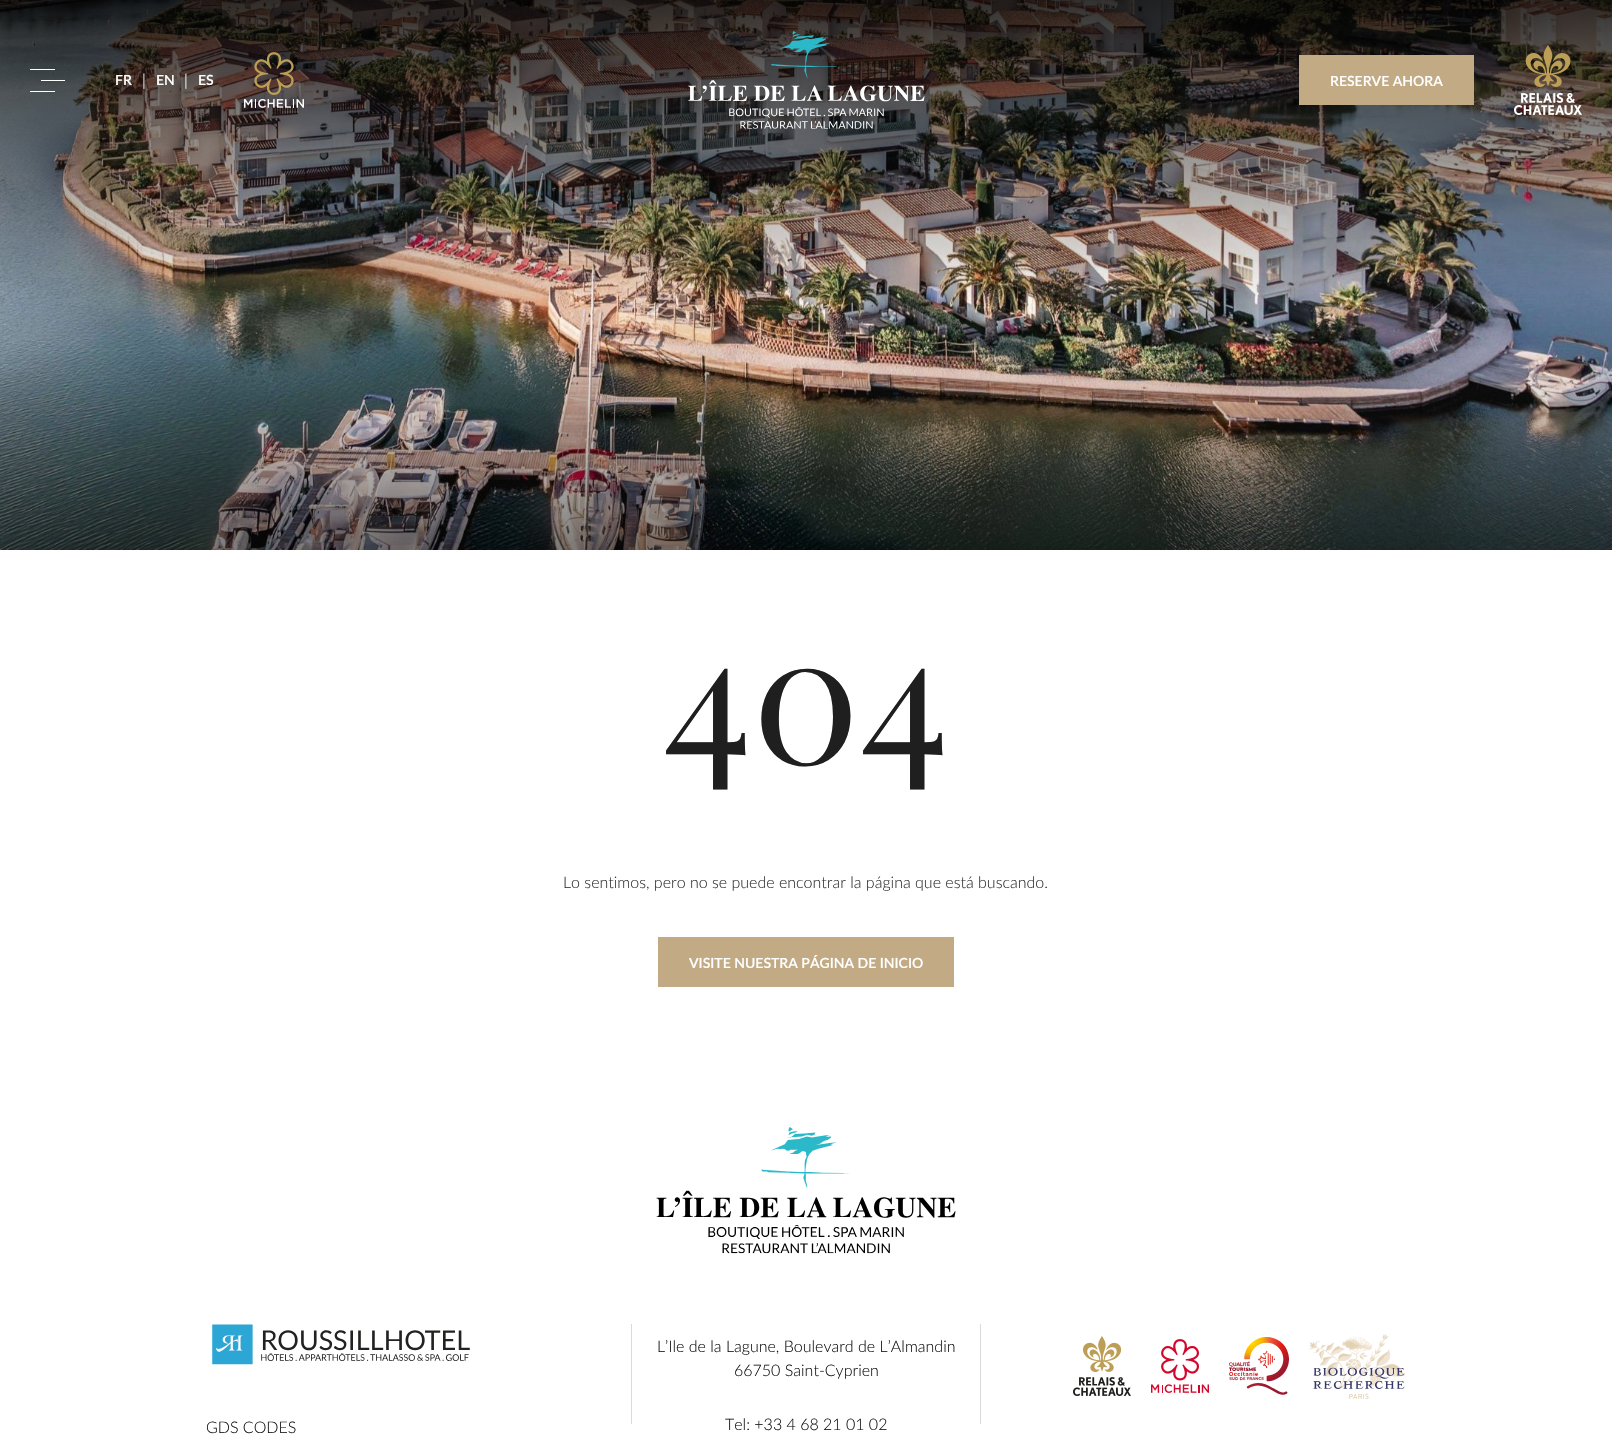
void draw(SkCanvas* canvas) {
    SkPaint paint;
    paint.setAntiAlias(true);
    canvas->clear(0xFFFFFFFF);
    canvas->drawImageRect(SkImages::DeferredFromEncodedData(SkData::MakeFromFileName("img4.png")), SkRect::MakeXYWH(0, 0, 1612, 550), SkSamplingOptions());
    paint.setColor(0xFFFFFFFF);
    canvas->drawRect(SkRect::MakeXYWH(30, 69, 25, 1), paint);
    canvas->drawRect(SkRect::MakeXYWH(41, 80, 24, 1), paint);
    canvas->drawRect(SkRect::MakeXYWH(30, 91, 25, 1), paint);
    SkFont font1(fontMgr->matchFamilyStyle("Lato", SkFontStyle(600, SkFontStyle::kNormal_Width, SkFontStyle::kUpright_Slant)), 14);
    font1.setSubpixel(true);
    canvas->drawString("FR", 115, 85, font1, paint);
    SkFont font2(fontMgr->matchFamilyStyle("Lato", SkFontStyle(300, SkFontStyle::kNormal_Width, SkFontStyle::kUpright_Slant)), 16);
    font2.setSubpixel(true);
    canvas->drawString("|", 142, 86, font2, paint);
    canvas->drawString("EN", 156, 85, font1, paint);
    canvas->drawString("|", 184, 86, font2, paint);
    canvas->drawString("ES", 198, 85, font1, paint);
    canvas->drawImageRect(SkImages::DeferredFromEncodedData(SkData::MakeFromFileName("img1.png")), SkRect::MakeXYWH(244, 52, 60, 56), SkSamplingOptions());
    canvas->drawImageRect(SkImages::DeferredFromEncodedData(SkData::MakeFromFileName("img2.png")), SkRect::MakeXYWH(688, 31, 237, 98), SkSamplingOptions());
    paint.setColor(0xFFC1AA84);
    canvas->drawRect(SkRect::MakeXYWH(1299, 55, 175, 50), paint);
    paint.setColor(0xFFFFFFFF);
    canvas->drawString("RESERVE AHORA", 1330, 86, font1, paint);
    canvas->drawImageRect(SkImages::DeferredFromEncodedData(SkData::MakeFromFileName("img3.png")), SkRect::MakeXYWH(1514, 45, 68, 70), SkSamplingOptions());
    SkFont font3(fontMgr->matchFamilyStyle("Playfair Display", SkFontStyle::Normal()), 180);
    font3.setSubpixel(true);
    paint.setColor(0xFF1F1F20);
    canvas->drawString("404", 663, 764, font3, paint);
    paint.setColor(0xFF343536);
    canvas->drawString("Lo sentimos, pero no se puede encontrar la página que está buscando.", 563, 888, font2, paint);
    paint.setColor(0xFFC1AA84);
    canvas->drawRect(SkRect::MakeXYWH(658, 937, 296, 50), paint);
    paint.setColor(0xFFFFFFFF);
    canvas->drawString("VISITE NUESTRA PÁGINA DE INICIO", 689, 968, font1, paint);
    canvas->drawImageRect(SkImages::DeferredFromEncodedData(SkData::MakeFromFileName("img5.png")), SkRect::MakeXYWH(656, 1127, 300, 127), SkSamplingOptions());
    canvas->drawImageRect(SkImages::DeferredFromEncodedData(SkData::MakeFromFileName("img6.png")), SkRect::MakeXYWH(212, 1324, 258, 41), SkSamplingOptions());
    paint.setColor(0xFF161616);
    canvas->drawString("GDS CODES", 206, 1433, font2, paint);
    paint.setColor(0xFFDADADA);
    canvas->drawRect(SkRect::MakeXYWH(631, 1324, 1, 100), paint);
    paint.setColor(0xFF161616);
    canvas->drawString("L’Ile de la Lagune, Boulevard de L’Almandin", 657, 1352, font2, paint);
    canvas->drawString("66750 Saint-Cyprien", 734, 1376, font2, paint);
    canvas->drawString("Tel: +33 4 68 21 01 02", 725, 1430, font2, paint);
    paint.setColor(0xFFDADADA);
    canvas->drawRect(SkRect::MakeXYWH(980, 1324, 1, 100), paint);
    canvas->drawImageRect(SkImages::DeferredFromEncodedData(SkData::MakeFromFileName("img7.png")), SkRect::MakeXYWH(1073, 1336, 58, 60), SkSamplingOptions());
    canvas->drawImageRect(SkImages::DeferredFromEncodedData(SkData::MakeFromFileName("img8.png")), SkRect::MakeXYWH(1151, 1339, 58, 54), SkSamplingOptions());
    canvas->drawImageRect(SkImages::DeferredFromEncodedData(SkData::MakeFromFileName("img9.png")), SkRect::MakeXYWH(1229, 1337, 60, 58), SkSamplingOptions());
    canvas->drawImageRect(SkImages::DeferredFromEncodedData(SkData::MakeFromFileName("img10.png")), SkRect::MakeXYWH(1309, 1334, 97, 65), SkSamplingOptions());
}
